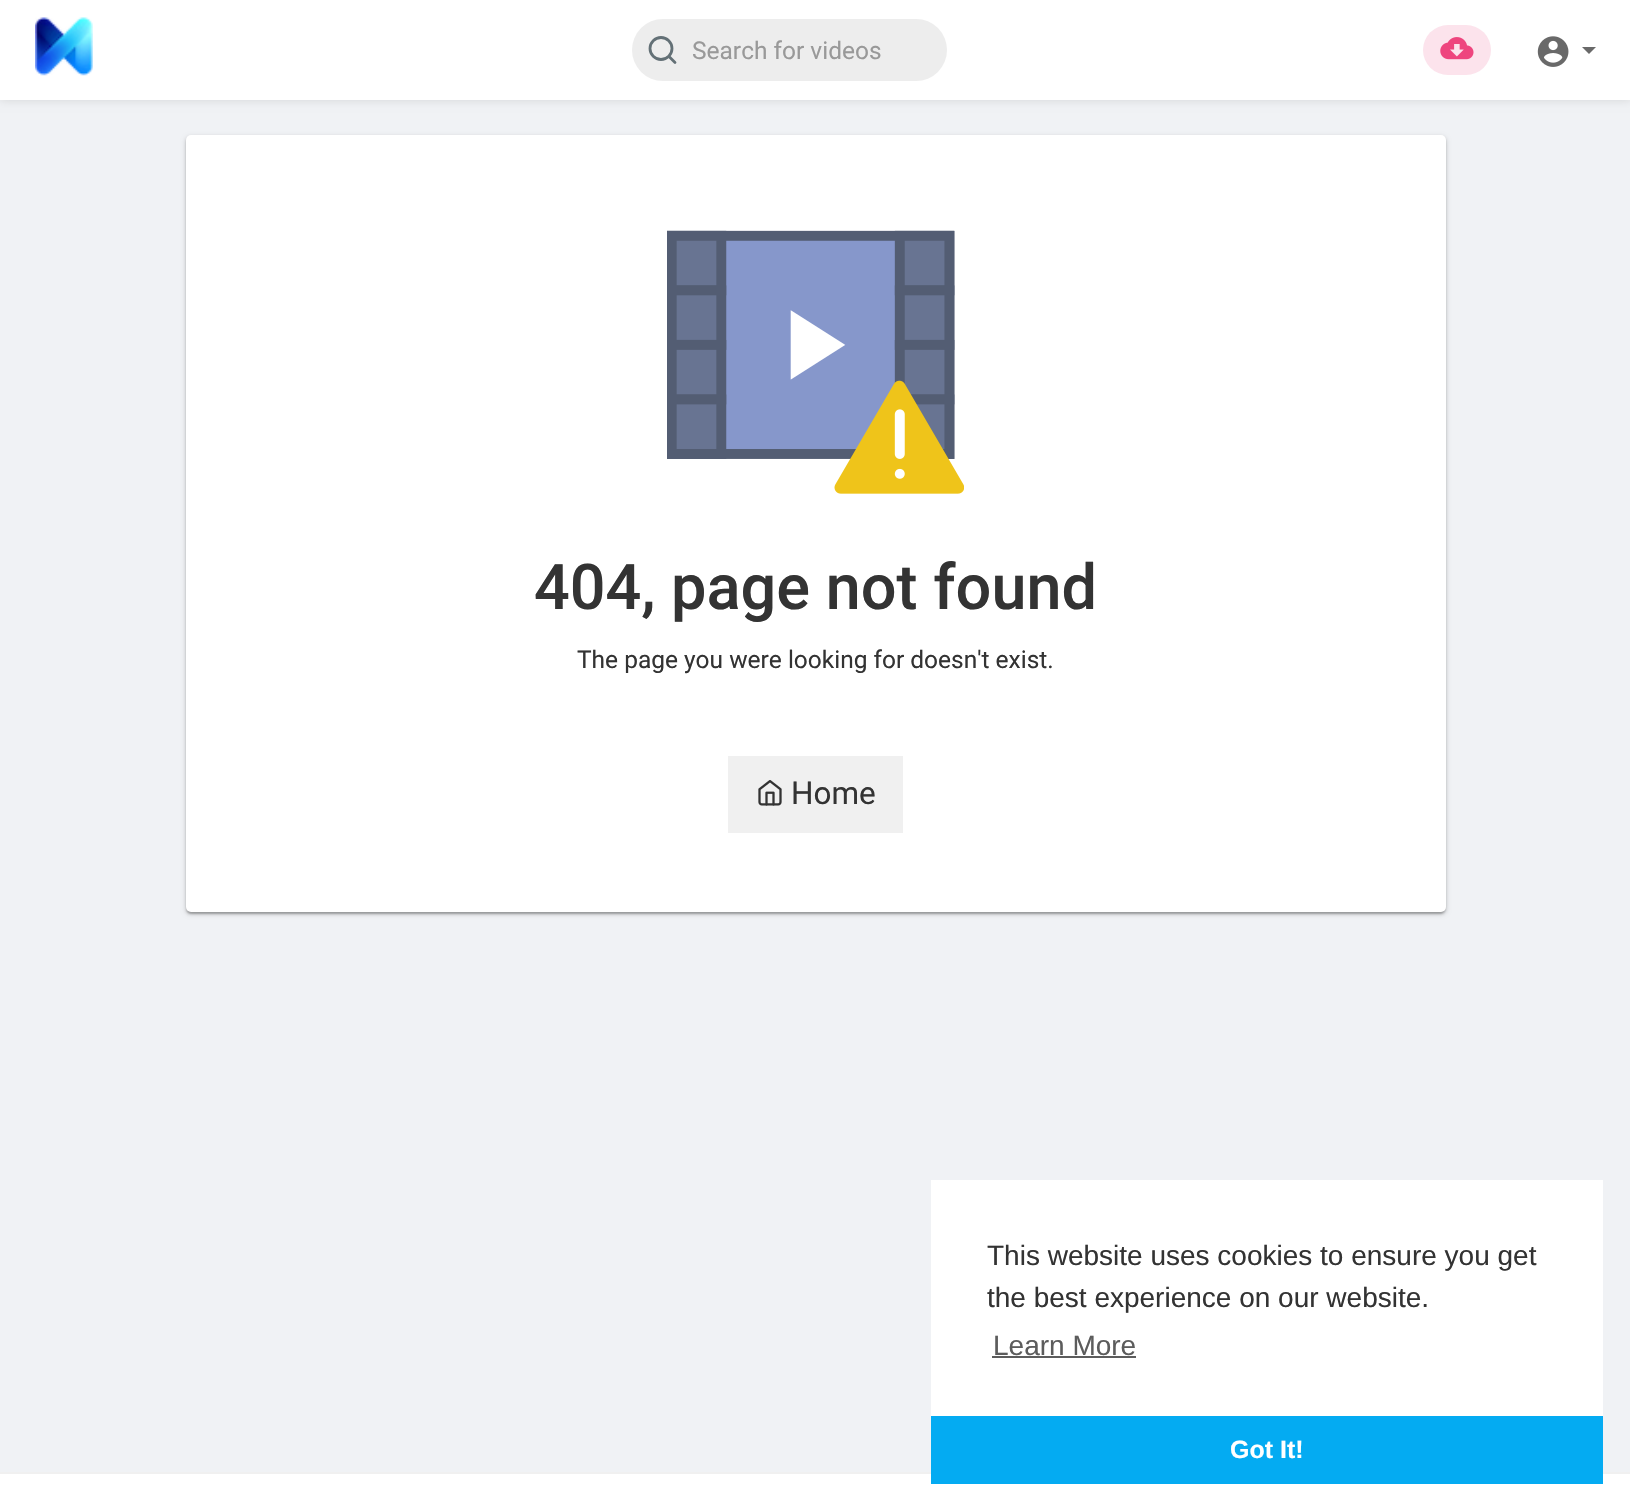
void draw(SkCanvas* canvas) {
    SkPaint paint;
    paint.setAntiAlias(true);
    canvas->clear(0xFFF0F2F5);
    paint.setColor(0x1F000000);
    paint.setMaskFilter(SkMaskFilter::MakeBlur(kNormal_SkBlurStyle, 4.5f));
    canvas->drawRect(SkRect::MakeXYWH(0, 0, 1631, 100), paint);
    paint.setMaskFilter(nullptr);
    paint.setColor(0xFFFFFFFF);
    canvas->drawRect(SkRect::MakeXYWH(0, 0, 1630, 100), paint);
    canvas->drawImageRect(SkImages::DeferredFromEncodedData(SkData::MakeFromFileName("img1.png")), SkRect::MakeXYWH(35, 17, 58, 59), SkSamplingOptions());
    paint.setColor(0xFFEDEDED);
    canvas->drawRoundRect(SkRect::MakeXYWH(632, 19, 315, 62), 31, 31, paint);
    paint.setStyle(SkPaint::kStroke_Style);
    paint.setStrokeWidth(2.8f);
    paint.setColor(0xFF637076);
    canvas->drawCircle(661, 48.5f, 11, paint);
    paint.setStrokeCap(SkPaint::kRound_Cap);
    paint.setStrokeJoin(SkPaint::kRound_Join);
    canvas->drawPath(SkPathBuilder().moveTo(675, 62.5f).lineTo(669, 56.5f).detach(), paint);
    SkFont font1(fontMgr->matchFamilyStyle("Roboto", SkFontStyle::Normal()), 24.5f);
    font1.setSubpixel(true);
    paint.setStyle(SkPaint::kFill_Style);
    paint.setColor(0xFF999999);
    canvas->drawString("Search for videos", 692, 59, font1, paint);
    paint.setColor(0xFFFCE3EC);
    canvas->drawRoundRect(SkRect::MakeXYWH(1423, 25, 68, 50), 25, 25, paint);
    canvas->drawImageRect(SkImages::DeferredFromEncodedData(SkData::MakeFromFileName("img2.png")), SkRect::MakeXYWH(1440, 37, 34, 23), SkSamplingOptions());
    canvas->drawImageRect(SkImages::DeferredFromEncodedData(SkData::MakeFromFileName("img3.png")), SkRect::MakeXYWH(1537, 36, 32, 31), SkSamplingOptions());
    paint.setColor(0xFF696969);
    canvas->drawPath(SkPathBuilder().moveTo(1582, 47).lineTo(1596, 47).lineTo(1589, 54).close().detach(), paint);
    paint.setColor(0x1F000000);
    paint.setMaskFilter(SkMaskFilter::MakeBlur(kNormal_SkBlurStyle, 1));
    canvas->drawRoundRect(SkRect::MakeXYWH(187, 140, 1257, 774), 4, 4, paint);
    paint.setMaskFilter(nullptr);
    paint.setColor(0x24000000);
    paint.setMaskFilter(SkMaskFilter::MakeBlur(kNormal_SkBlurStyle, 1));
    canvas->drawRoundRect(SkRect::MakeXYWH(186, 137, 1260, 777), 5, 5, paint);
    paint.setMaskFilter(nullptr);
    paint.setColor(0x33000000);
    paint.setMaskFilter(SkMaskFilter::MakeBlur(kNormal_SkBlurStyle, 2.5f));
    canvas->drawRoundRect(SkRect::MakeXYWH(186, 137, 1260, 777), 5, 5, paint);
    paint.setMaskFilter(nullptr);
    paint.setColor(0xFFFFFFFF);
    canvas->drawRoundRect(SkRect::MakeXYWH(186, 135, 1260, 777), 5, 5, paint);
    canvas->drawImageRect(SkImages::DeferredFromEncodedData(SkData::MakeFromFileName("img4.png")), SkRect::MakeXYWH(667, 230, 297, 264), SkSamplingOptions());
    SkFont font2(fontMgr->matchFamilyStyle("Roboto", SkFontStyle(500, SkFontStyle::kNormal_Width, SkFontStyle::kUpright_Slant)), 63);
    font2.setSubpixel(true);
    paint.setColor(0xFF333333);
    canvas->drawString("404, page not found", 534, 609, font2, paint);
    canvas->drawString("The page you were looking for doesn't exist.", 577, 668, font1, paint);
    paint.setColor(0xFFF0F0F0);
    canvas->drawRect(SkRect::MakeXYWH(728, 756, 175, 77), paint);
    canvas->drawImageRect(SkImages::DeferredFromEncodedData(SkData::MakeFromFileName("img5.png")), SkRect::MakeXYWH(758, 780, 24, 26), SkSamplingOptions());
    SkFont font3(fontMgr->matchFamilyStyle("Roboto", SkFontStyle::Normal()), 31.5f);
    font3.setSubpixel(true);
    paint.setColor(0xFF333333);
    canvas->drawString("Home", 791, 804, font3, paint);
    paint.setColor(0xFFFFFFFF);
    canvas->drawRect(SkRect::MakeXYWH(931, 1180, 672, 236), paint);
    SkFont font4(fontMgr->matchFamilyStyle("Liberation Sans", SkFontStyle::Normal()), 28);
    font4.setSubpixel(true);
    paint.setColor(0xFF333333);
    canvas->drawString("This website uses cookies to ensure you get", 987, 1265, font4, paint);
    canvas->drawString("the best experience on our website.", 987, 1307, font4, paint);
    paint.setColor(0xFF5C5C5C);
    canvas->drawString("Learn More", 993, 1355, font4, paint);
    canvas->drawRect(SkRect::MakeXYWH(992, 1356, 144, 2), paint);
    paint.setColor(0xFFFFFFFF);
    canvas->drawRect(SkRect::MakeXYWH(0, 1474, 1630, 37), paint);
    paint.setColor(0xFFF0F0F0);
    canvas->drawRect(SkRect::MakeXYWH(0, 1472, 1630, 2), paint);
    paint.setColor(0xFF04ABF2);
    canvas->drawRect(SkRect::MakeXYWH(931, 1416, 672, 68), paint);
    SkFont font5(fontMgr->matchFamilyStyle("Liberation Sans", SkFontStyle::Bold()), 25);
    font5.setSubpixel(true);
    paint.setColor(0xFFFFFFFF);
    canvas->drawString("Got It!", 1230, 1458, font5, paint);
}
